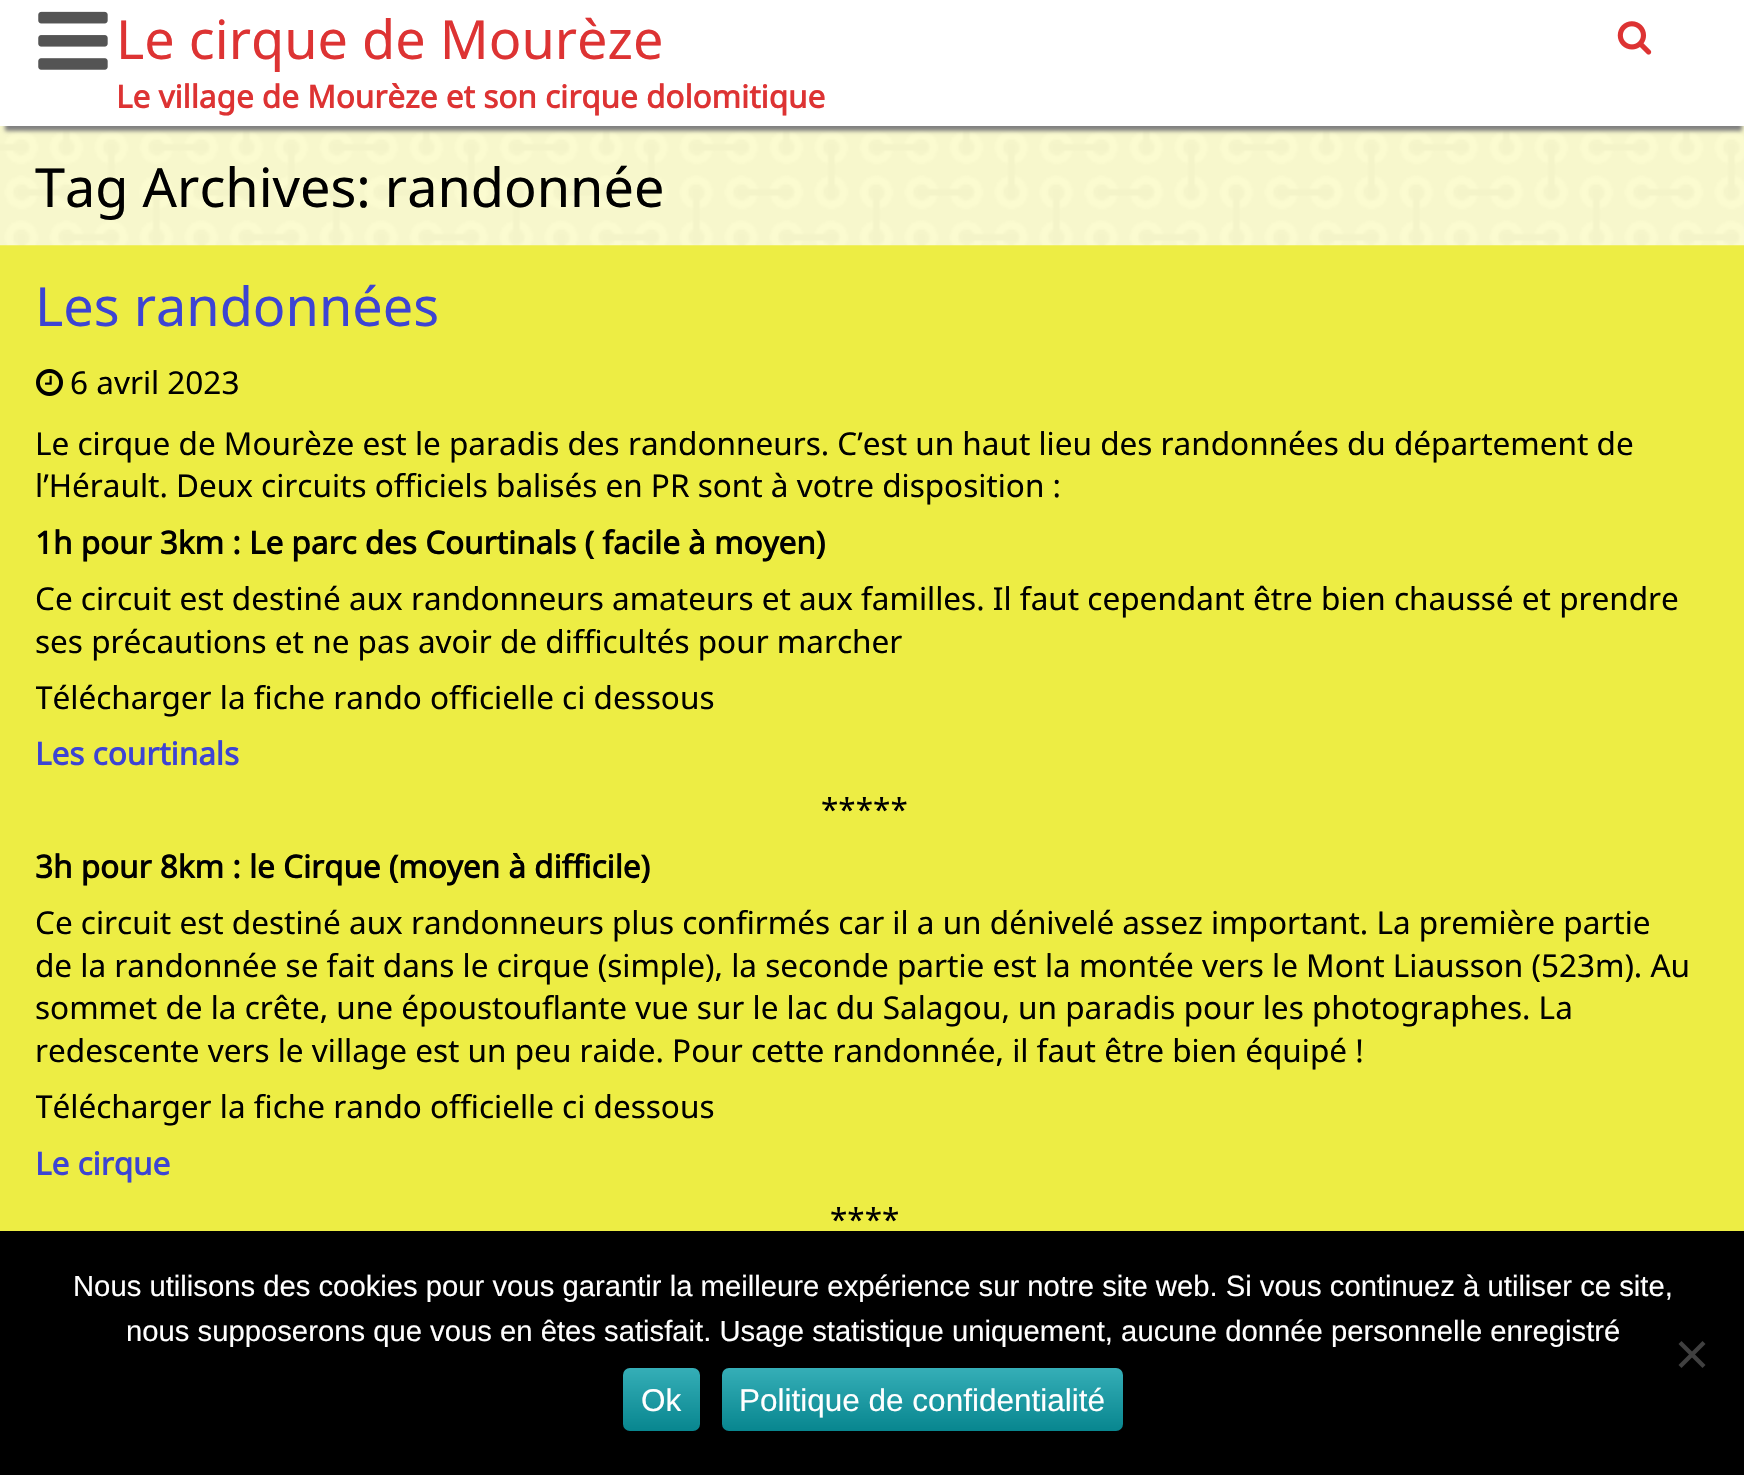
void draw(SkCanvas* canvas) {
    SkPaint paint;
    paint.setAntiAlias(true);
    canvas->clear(0xFFEDED44);
    canvas->drawImageRect(SkImages::DeferredFromEncodedData(SkData::MakeFromFileName("img3.png")), SkRect::MakeXYWH(0, 126, 1744, 120), SkSamplingOptions());
    paint.setColor(0xFF808080);
    paint.setMaskFilter(SkMaskFilter::MakeBlur(kNormal_SkBlurStyle, 2));
    canvas->drawRect(SkRect::MakeXYWH(5, 14, 1737, 117), paint);
    paint.setMaskFilter(nullptr);
    paint.setColor(0xFFFFFFFF);
    canvas->drawRect(SkRect::MakeXYWH(0, 0, 1744, 126), paint);
    canvas->drawImageRect(SkImages::DeferredFromEncodedData(SkData::MakeFromFileName("img1.png")), SkRect::MakeXYWH(38, 11, 70, 59), SkSamplingOptions());
    SkFont font1(fontMgr->matchFamilyStyle("Noto Sans", SkFontStyle::Normal()), 54);
    font1.setSubpixel(true);
    paint.setColor(0xFFDD3333);
    canvas->drawString("Le cirque de Mourèze", 116, 59, font1, paint);
    SkFont font2(fontMgr->matchFamilyStyle("Noto Sans", SkFontStyle::Bold()), 31.5f);
    font2.setSubpixel(true);
    canvas->drawString("Le village de Mourèze et son cirque dolomitique", 116, 108, font2, paint);
    canvas->drawImageRect(SkImages::DeferredFromEncodedData(SkData::MakeFromFileName("img2.png")), SkRect::MakeXYWH(1617, 21, 35, 34), SkSamplingOptions());
    paint.setColor(0xFF000000);
    canvas->drawString("Tag Archives: randonnée", 35, 207, font1, paint);
    paint.setColor(0xFF3D44D3);
    canvas->drawString("Les randonnées", 35, 326, font1, paint);
    canvas->drawImageRect(SkImages::DeferredFromEncodedData(SkData::MakeFromFileName("img4.png")), SkRect::MakeXYWH(36, 369, 27, 27), SkSamplingOptions());
    SkFont font3(fontMgr->matchFamilyStyle("Noto Sans", SkFontStyle::Normal()), 31.5f);
    font3.setSubpixel(true);
    paint.setColor(0xFF000000);
    canvas->drawString("6 avril 2023", 70, 394, font3, paint);
    canvas->drawString("Le cirque de Mourèze est le paradis des randonneurs. C’est un haut lieu des randonnées du département de", 35, 455, font3, paint);
    canvas->drawString("l’Hérault. Deux circuits officiels balisés en PR sont à votre disposition :", 35, 497, font3, paint);
    canvas->drawString("1h pour 3km : Le parc des Courtinals ( facile à moyen)", 35, 554, font2, paint);
    canvas->drawString("Ce circuit est destiné aux randonneurs amateurs et aux familles. Il faut cependant être bien chaussé et prendre", 35, 610, font3, paint);
    canvas->drawString("ses précautions et ne pas avoir de difficultés pour marcher", 35, 653, font3, paint);
    canvas->save();
    canvas->clipRect(SkRect::MakeXYWH(36, 245, 1658, 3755));
    canvas->drawString("Télécharger la fiche rando officielle ci dessous", 35, 709, font3, paint);
    canvas->restore();
    paint.setColor(0xFF3D44D3);
    canvas->drawString("Les courtinals", 35, 765, font2, paint);
    paint.setColor(0xFF000000);
    canvas->drawString("*****", 821, 821, font3, paint);
    canvas->drawString("3h pour 8km : le Cirque (moyen à difficile)", 35, 878, font2, paint);
    canvas->drawString("Ce circuit est destiné aux randonneurs plus confirmés car il a un dénivelé assez important. La première partie", 35, 934, font3, paint);
    canvas->drawString("de la randonnée se fait dans le cirque (simple), la seconde partie est la montée vers le Mont Liausson (523m). Au", 35, 977, font3, paint);
    canvas->drawString("sommet de la crête, une époustouflante vue sur le lac du Salagou, un paradis pour les photographes. La", 35, 1019, font3, paint);
    canvas->drawString("redescente vers le village est un peu raide. Pour cette randonnée, il faut être bien équipé !", 35, 1062, font3, paint);
    canvas->save();
    canvas->clipRect(SkRect::MakeXYWH(36, 245, 1658, 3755));
    canvas->drawString("Télécharger la fiche rando officielle ci dessous", 35, 1118, font3, paint);
    canvas->restore();
    paint.setColor(0xFF3D44D3);
    canvas->drawString("Le cirque", 35, 1175, font2, paint);
    paint.setColor(0xFF000000);
    canvas->drawString("****", 830, 1231, font3, paint);
    canvas->drawRect(SkRect::MakeXYWH(0, 1231, 1744, 244), paint);
    SkFont font4(fontMgr->matchFamilyStyle("Liberation Sans", SkFontStyle::Normal()), 29.25f);
    font4.setSubpixel(true);
    paint.setColor(0xFFFFFFFF);
    canvas->drawString("Nous utilisons des cookies pour vous garantir la meilleure expérience sur notre site web. Si vous continuez à utiliser ce site,", 73, 1296, font4, paint);
    canvas->drawString("nous supposerons que vous en êtes satisfait. Usage statistique uniquement, aucune donnée personnelle enregistré", 126, 1341, font4, paint);
    paint.setColor(0xFF404040);
    canvas->drawPath(SkPathBuilder().moveTo(1702.5f, 1341).lineTo(1705.5f, 1344).lineTo(1681.5f, 1368).lineTo(1678.5f, 1365).close().detach(), paint);
    canvas->drawPath(SkPathBuilder().moveTo(1678.5f, 1344).lineTo(1681.5f, 1341).lineTo(1705.5f, 1365).lineTo(1702.5f, 1368).close().detach(), paint);
    {
        const SkColor colors[] = {0xFF35AEB7, 0xFF08868F};
        const float stops[] = {0, 1};
        const SkPoint ends[] = {{662, 1368}, {662, 1431}};
        paint.setShader(SkGradientShader::MakeLinear(ends, colors, stops, 2, SkTileMode::kClamp));
        paint.setAlpha(255);
    }
    canvas->drawRoundRect(SkRect::MakeXYWH(623, 1368, 77, 63), 7, 7, paint);
    SkFont font5(fontMgr->matchFamilyStyle("Liberation Sans", SkFontStyle::Normal()), 31.5f);
    font5.setSubpixel(true);
    paint.setShader(nullptr);
    paint.setColor(0xFFFFFFFF);
    canvas->drawString("Ok", 641, 1411, font5, paint);
    {
        const SkColor colors[] = {0xFF35AEB7, 0xFF08868F};
        const float stops[] = {0, 1};
        const SkPoint ends[] = {{923, 1368}, {923, 1431}};
        paint.setShader(SkGradientShader::MakeLinear(ends, colors, stops, 2, SkTileMode::kClamp));
        paint.setAlpha(255);
    }
    canvas->drawRoundRect(SkRect::MakeXYWH(722, 1368, 401, 63), 7, 7, paint);
    paint.setShader(nullptr);
    paint.setColor(0xFFFFFFFF);
    canvas->drawString("Politique de confidentialité", 739, 1411, font5, paint);
}
